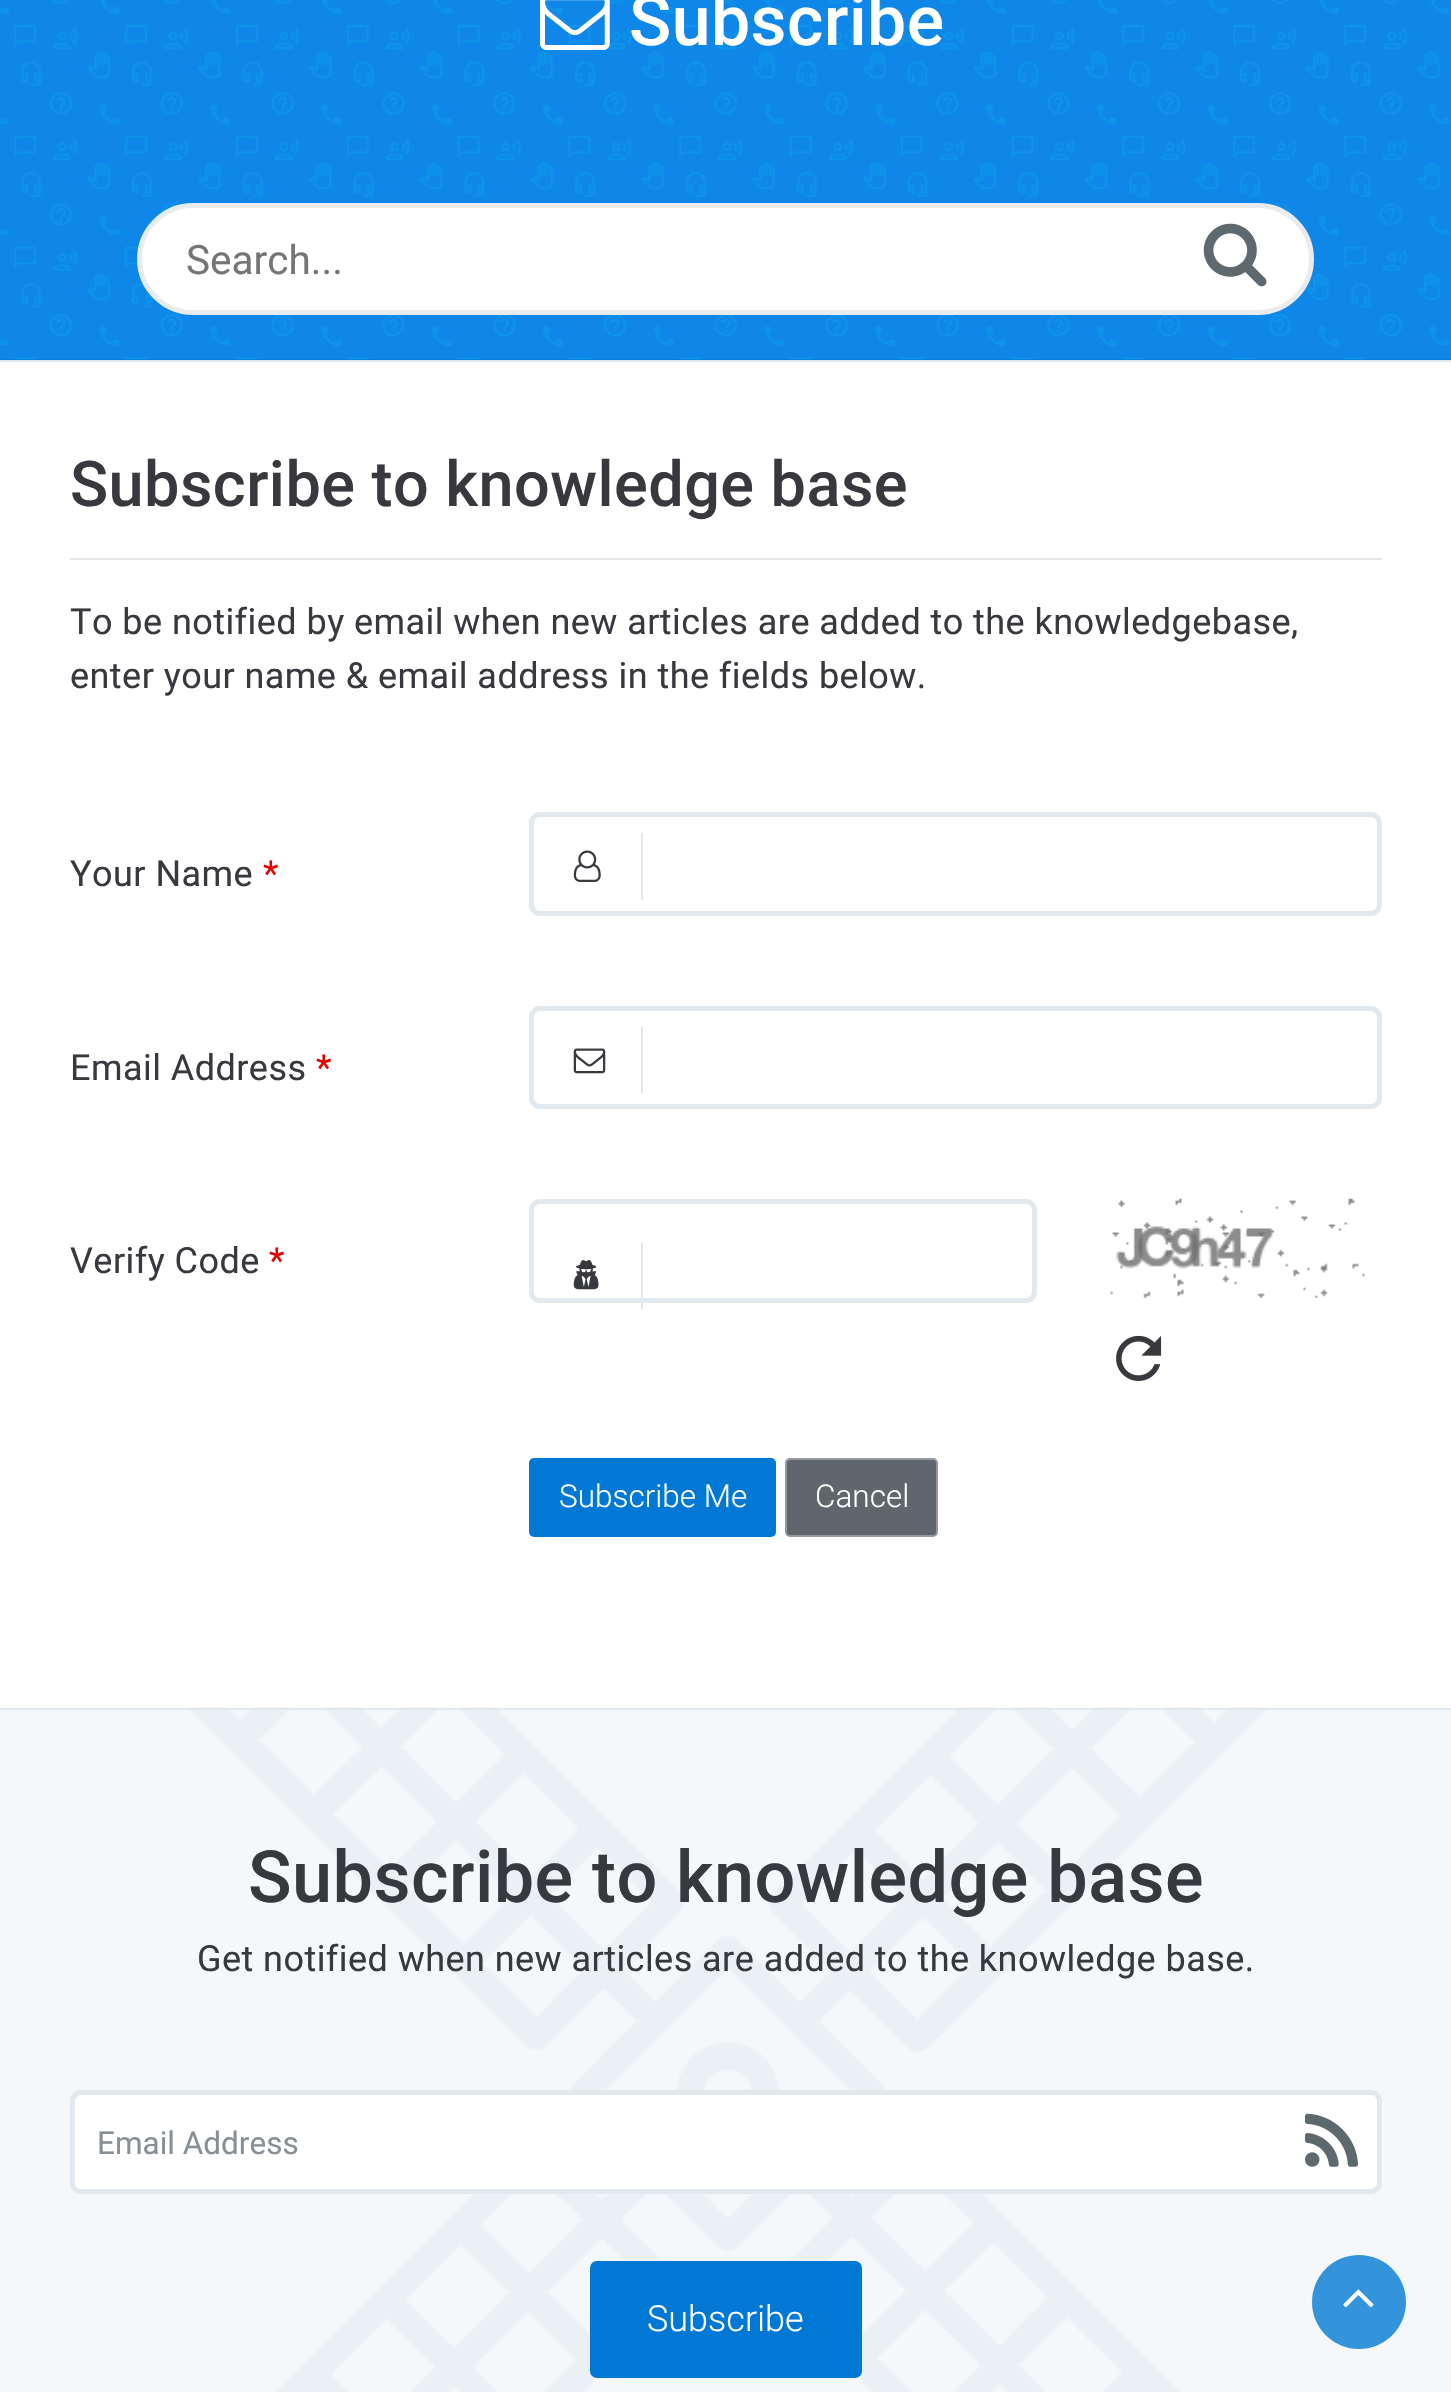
void draw(SkCanvas* canvas) {
    SkPaint paint;
    paint.setAntiAlias(true);
    auto spacedText = [&](const char* s, float x, float y, const SkFont& font, const SkPaint& ink, float letter, float word) {
        std::vector<SkGlyphID> glyphs(font.countText(s, strlen(s), SkTextEncoding::kUTF8));
        std::vector<float> xs(glyphs.size());
        font.textToGlyphs(s, strlen(s), SkTextEncoding::kUTF8, glyphs);
        font.getXPos(glyphs, xs, x);
        float extra = 0;
        for (size_t i = 0; i < glyphs.size(); i++) {
            xs[i] += extra;
            extra += letter + word * (glyphs[i] == font.unicharToGlyph(' '));
        }
        canvas->drawTextBlob(SkTextBlob::MakeFromPosHGlyphs(glyphs, xs, y, font), 0, 0, ink);
    };
    canvas->clear(0xFFFFFFFF);
    paint.setColor(0xFF0078D4);
    canvas->drawRect(SkRect::MakeXYWH(0, 359, 1451, 1), paint);
    canvas->drawImageRect(SkImages::DeferredFromEncodedData(SkData::MakeFromFileName("img1.png")), SkRect::MakeXYWH(0, 0, 1451, 360), SkSamplingOptions());
    paint.setColor(0xFFE1E8EE);
    canvas->drawRect(SkRect::MakeXYWH(0, 360, 1451, 2), paint);
    canvas->drawImageRect(SkImages::DeferredFromEncodedData(SkData::MakeFromFileName("img2.png")), SkRect::MakeXYWH(540, 0, 70, 50), SkSamplingOptions());
    SkFont font1(fontMgr->matchFamilyStyle("Roboto", SkFontStyle(500, SkFontStyle::kNormal_Width, SkFontStyle::kUpright_Slant)), 69.75f);
    font1.setSubpixel(true);
    paint.setColor(0xFFFFFFFF);
    spacedText("Subscribe", 629, 45, font1, paint, 0.45f, 0);
    canvas->drawRoundRect(SkRect::MakeXYWH(139.5f, 205.5f, 1172, 107), 53.5f, 53.5f, paint);
    paint.setStyle(SkPaint::kStroke_Style);
    paint.setStrokeWidth(5);
    paint.setColor(0xFFE9ECEF);
    canvas->drawRoundRect(SkRect::MakeXYWH(139.5f, 205.5f, 1172, 107), 53.5f, 53.5f, paint);
    SkFont font2(fontMgr->matchFamilyStyle("Roboto", SkFontStyle::Normal()), 40.5f);
    font2.setSubpixel(true);
    paint.setStyle(SkPaint::kFill_Style);
    paint.setColor(0xFF757575);
    canvas->drawString("Search...", 186, 274, font2, paint);
    canvas->drawImageRect(SkImages::DeferredFromEncodedData(SkData::MakeFromFileName("img3.png")), SkRect::MakeXYWH(1203, 223, 64, 64), SkSamplingOptions());
    SkFont font3(fontMgr->matchFamilyStyle("Roboto", SkFontStyle(500, SkFontStyle::kNormal_Width, SkFontStyle::kUpright_Slant)), 63);
    font3.setSubpixel(true);
    paint.setColor(0xFF37393E);
    spacedText("Subscribe to knowledge base", 70, 506, font3, paint, 0.45f, 0);
    paint.setColor(0xFFE6E6E6);
    canvas->drawRect(SkRect::MakeXYWH(70, 558, 1312, 2), paint);
    SkFont font4(fontMgr->matchFamilyStyle("Roboto", SkFontStyle::Normal()), 36);
    font4.setSubpixel(true);
    paint.setColor(0xFF37393E);
    spacedText("To be notified by email when new articles are added to the knowledgebase,", 70, 634, font4, paint, 0.45f, 0);
    spacedText("enter your name & email address in the fields below.", 70, 688, font4, paint, 0.45f, 0);
    spacedText("Your Name", 70, 886, font4, paint, 0.45f, 0);
    paint.setColor(0xFFE70000);
    spacedText("*", 263, 886, font4, paint, 0.45f, 0);
    paint.setStyle(SkPaint::kStroke_Style);
    paint.setColor(0xFFE1E8EE);
    canvas->drawRoundRect(SkRect::MakeXYWH(531.5f, 814.5f, 848, 99), 8.5f, 8.5f, paint);
    canvas->drawImageRect(SkImages::DeferredFromEncodedData(SkData::MakeFromFileName("img4.png")), SkRect::MakeXYWH(573, 850, 28, 32), SkSamplingOptions());
    paint.setStyle(SkPaint::kFill_Style);
    canvas->drawRect(SkRect::MakeXYWH(641, 833, 2, 67), paint);
    paint.setColor(0xFF37393E);
    spacedText("Email Address", 70, 1080, font4, paint, 0.45f, 0);
    paint.setColor(0xFFE70000);
    spacedText("*", 316, 1080, font4, paint, 0.45f, 0);
    paint.setStyle(SkPaint::kStroke_Style);
    paint.setColor(0xFFE1E8EE);
    canvas->drawRoundRect(SkRect::MakeXYWH(531.5f, 1008.5f, 848, 98), 8.5f, 8.5f, paint);
    canvas->drawImageRect(SkImages::DeferredFromEncodedData(SkData::MakeFromFileName("img5.png")), SkRect::MakeXYWH(573, 1048, 33, 26), SkSamplingOptions());
    paint.setStyle(SkPaint::kFill_Style);
    canvas->drawRect(SkRect::MakeXYWH(641, 1026, 2, 68), paint);
    paint.setColor(0xFF37393E);
    spacedText("Verify Code", 70, 1273, font4, paint, 0.45f, 0);
    paint.setColor(0xFFE70000);
    spacedText("*", 269, 1273, font4, paint, 0.45f, 0);
    paint.setStyle(SkPaint::kStroke_Style);
    paint.setColor(0xFFE1E8EE);
    canvas->drawRoundRect(SkRect::MakeXYWH(531.5f, 1201.5f, 503, 99), 8.5f, 8.5f, paint);
    canvas->drawImageRect(SkImages::DeferredFromEncodedData(SkData::MakeFromFileName("img6.png")), SkRect::MakeXYWH(573, 1260, 26, 30), SkSamplingOptions());
    paint.setStyle(SkPaint::kFill_Style);
    canvas->drawRect(SkRect::MakeXYWH(641, 1242, 2, 68), paint);
    canvas->drawImageRect(SkImages::DeferredFromEncodedData(SkData::MakeFromFileName("img7.png")), SkRect::MakeXYWH(1110, 1198, 255, 100), SkSamplingOptions());
    canvas->drawImageRect(SkImages::DeferredFromEncodedData(SkData::MakeFromFileName("img8.png")), SkRect::MakeXYWH(1116, 1335, 46, 46), SkSamplingOptions());
    paint.setColor(0xFF0078D4);
    canvas->drawRoundRect(SkRect::MakeXYWH(529, 1458, 247, 79), 5, 5, paint);
    SkFont font5(fontMgr->matchFamilyStyle("Roboto", SkFontStyle(300, SkFontStyle::kNormal_Width, SkFontStyle::kUpright_Slant)), 31.5f);
    font5.setSubpixel(true);
    paint.setColor(0xFFFFFFFF);
    canvas->drawString("Subscribe Me", 559, 1507, font5, paint);
    paint.setColor(0xFF5F666D);
    canvas->drawRoundRect(SkRect::MakeXYWH(786, 1459, 151, 77), 4, 4, paint);
    paint.setStyle(SkPaint::kStroke_Style);
    paint.setStrokeWidth(2);
    paint.setColor(0xFF9299A0);
    canvas->drawRoundRect(SkRect::MakeXYWH(786, 1459, 151, 77), 4, 4, paint);
    paint.setStyle(SkPaint::kFill_Style);
    paint.setColor(0xFFFFFFFF);
    canvas->drawString("Cancel", 815, 1507, font5, paint);
    paint.setColor(0xFFF5F8FA);
    canvas->drawRect(SkRect::MakeXYWH(0, 1710, 1451, 682), paint);
    canvas->drawImageRect(SkImages::DeferredFromEncodedData(SkData::MakeFromFileName("img9.png")), SkRect::MakeXYWH(188, 1707, 1079, 685), SkSamplingOptions());
    paint.setColor(0xFFE1E8EE);
    canvas->drawRect(SkRect::MakeXYWH(0, 1708, 1451, 2), paint);
    SkFont font6(fontMgr->matchFamilyStyle("Roboto", SkFontStyle(500, SkFontStyle::kNormal_Width, SkFontStyle::kUpright_Slant)), 72);
    font6.setSubpixel(true);
    paint.setColor(0xFF37393E);
    spacedText("Subscribe to knowledge base", 248, 1902, font6, paint, 0.45f, 0);
    spacedText("Get notified when new articles are added to the knowledge base.", 197, 1971, font4, paint, 0.45f, 0);
    paint.setColor(0xFFFFFFFF);
    canvas->drawRoundRect(SkRect::MakeXYWH(72.5f, 2092.5f, 1307, 99), 8.5f, 8.5f, paint);
    paint.setStyle(SkPaint::kStroke_Style);
    paint.setStrokeWidth(5);
    paint.setColor(0xFFE1E8EE);
    canvas->drawRoundRect(SkRect::MakeXYWH(72.5f, 2092.5f, 1307, 99), 8.5f, 8.5f, paint);
    SkFont font7(fontMgr->matchFamilyStyle("Roboto", SkFontStyle::Normal()), 31.5f);
    font7.setSubpixel(true);
    paint.setStyle(SkPaint::kFill_Style);
    paint.setColor(0xFF868E96);
    canvas->drawString("Email Address", 97, 2154, font7, paint);
    canvas->drawImageRect(SkImages::DeferredFromEncodedData(SkData::MakeFromFileName("img10.png")), SkRect::MakeXYWH(1305, 2113, 53, 54), SkSamplingOptions());
    paint.setColor(0xFF0078D4);
    canvas->drawRoundRect(SkRect::MakeXYWH(590, 2261, 272, 117), 7, 7, paint);
    SkFont font8(fontMgr->matchFamilyStyle("Roboto", SkFontStyle(300, SkFontStyle::kNormal_Width, SkFontStyle::kUpright_Slant)), 36);
    font8.setSubpixel(true);
    paint.setColor(0xFFFFFFFF);
    canvas->drawString("Subscribe", 647, 2331, font8, paint);
    paint.setColor(0xFF3394DB);
    canvas->drawCircle(1359, 2302, 47, paint);
    canvas->drawImageRect(SkImages::DeferredFromEncodedData(SkData::MakeFromFileName("img11.png")), SkRect::MakeXYWH(1343, 2289, 31, 19), SkSamplingOptions());
}
